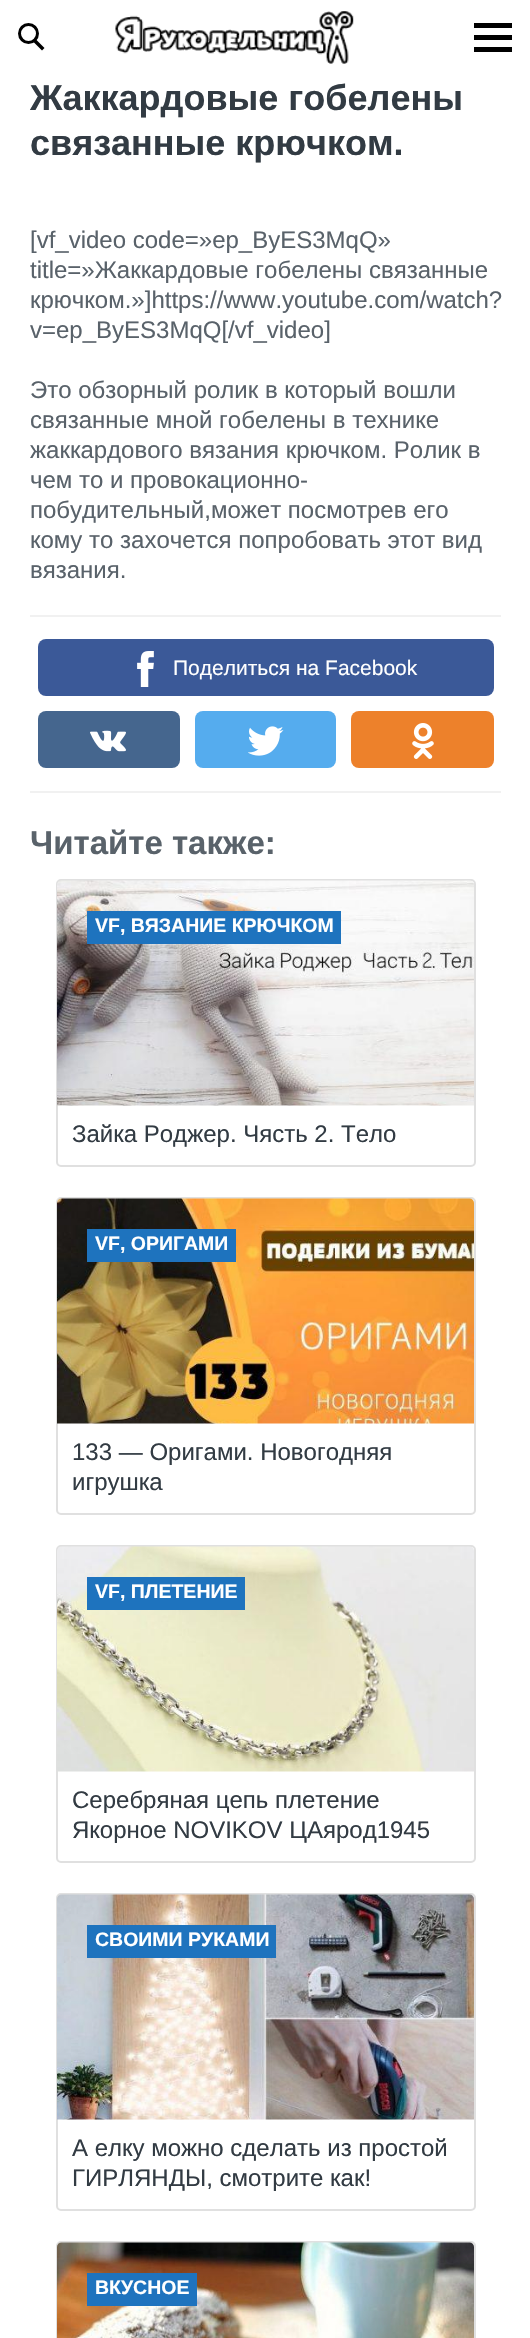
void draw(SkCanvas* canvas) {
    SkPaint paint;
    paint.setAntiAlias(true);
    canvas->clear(0xFFFFFFFF);
    paint.setStyle(SkPaint::kStroke_Style);
    paint.setStrokeWidth(3);
    paint.setColor(0xFF000000);
    canvas->drawCircle(28.5f, 33.5f, 9, paint);
    paint.setStyle(SkPaint::kFill_Style);
    canvas->drawPath(SkPathBuilder().moveTo(36, 39.5f).lineTo(44.5f, 48).lineTo(42, 50.5f).lineTo(33.5f, 42).close().detach(), paint);
    canvas->drawImageRect(SkImages::DeferredFromEncodedData(SkData::MakeFromFileName("img1.png")), SkRect::MakeXYWH(115, 11, 239, 53), SkSamplingOptions());
    canvas->drawRect(SkRect::MakeXYWH(474, 23, 38, 5), paint);
    canvas->drawRect(SkRect::MakeXYWH(474, 35, 38, 5), paint);
    canvas->drawRect(SkRect::MakeXYWH(474, 47, 38, 5), paint);
    SkFont font1(fontMgr->matchFamilyStyle("Liberation Sans", SkFontStyle::Bold()), 36);
    font1.setSubpixel(true);
    paint.setColor(0xFF323B43);
    canvas->drawString("Жаккардовые гобелены", 30, 110, font1, paint);
    canvas->drawString("связанные крючком.", 30, 155, font1, paint);
    SkFont font2(fontMgr->matchFamilyStyle("Liberation Sans", SkFontStyle::Normal()), 24);
    font2.setSubpixel(true);
    paint.setColor(0xFF59626A);
    canvas->drawString("[vf_video code=»ep_ByES3MqQ»", 30, 248, font2, paint);
    canvas->drawString("title=»Жаккардовые гобелены связанные", 30, 278, font2, paint);
    canvas->drawString("крючком.»]https://www.youtube.com/watch?", 30, 308, font2, paint);
    canvas->drawString("v=ep_ByES3MqQ[/vf_video]", 30, 338, font2, paint);
    canvas->drawString("Это обзорный ролик в который вошли", 30, 398, font2, paint);
    canvas->drawString("связанные мной гобелены в технике", 30, 428, font2, paint);
    canvas->drawString("жаккардового вязания крючком. Ролик в", 30, 458, font2, paint);
    canvas->drawString("чем то и провокационно-", 30, 488, font2, paint);
    canvas->drawString("побудительный,может посмотрев его", 30, 518, font2, paint);
    canvas->drawString("кому то захочется попробовать этот вид", 30, 548, font2, paint);
    canvas->drawString("вязания.", 30, 578, font2, paint);
    paint.setColor(0xFFF1F1F1);
    canvas->drawRect(SkRect::MakeXYWH(30, 615, 471, 2), paint);
    canvas->drawRect(SkRect::MakeXYWH(30, 791, 471, 2), paint);
    paint.setColor(0xFF3B5998);
    canvas->drawRoundRect(SkRect::MakeXYWH(38, 639, 456, 57), 8, 8, paint);
    canvas->drawImageRect(SkImages::DeferredFromEncodedData(SkData::MakeFromFileName("img2.png")), SkRect::MakeXYWH(137, 651, 17, 36), SkSamplingOptions());
    SkFont font3(fontMgr->matchFamilyStyle("Liberation Sans", SkFontStyle::Normal()), 21);
    font3.setSubpixel(true);
    paint.setColor(0xFFFFFFFF);
    canvas->drawString("Поделиться на Facebook", 173, 675, font3, paint);
    paint.setColor(0xFF45668E);
    canvas->drawRoundRect(SkRect::MakeXYWH(38, 711, 142, 57), 8, 8, paint);
    canvas->drawImageRect(SkImages::DeferredFromEncodedData(SkData::MakeFromFileName("img3.png")), SkRect::MakeXYWH(90, 730, 36, 22), SkSamplingOptions());
    paint.setColor(0xFF55ACEE);
    canvas->drawRoundRect(SkRect::MakeXYWH(195, 711, 141, 57), 8, 8, paint);
    canvas->drawImageRect(SkImages::DeferredFromEncodedData(SkData::MakeFromFileName("img4.png")), SkRect::MakeXYWH(248, 726, 36, 30), SkSamplingOptions());
    paint.setColor(0xFFED812B);
    canvas->drawRoundRect(SkRect::MakeXYWH(351, 711, 143, 57), 8, 8, paint);
    canvas->drawImageRect(SkImages::DeferredFromEncodedData(SkData::MakeFromFileName("img5.png")), SkRect::MakeXYWH(412, 723, 22, 36), SkSamplingOptions());
    SkFont font4(fontMgr->matchFamilyStyle("Liberation Sans", SkFontStyle::Bold()), 33);
    font4.setSubpixel(true);
    paint.setColor(0xFF59626A);
    canvas->drawString("Читайте также:", 30, 854, font4, paint);
    paint.setStyle(SkPaint::kStroke_Style);
    paint.setStrokeWidth(2);
    paint.setColor(0xFFE0E0E0);
    canvas->drawRoundRect(SkRect::MakeXYWH(57, 880, 418, 286), 4, 4, paint);
    canvas->drawImageRect(SkImages::DeferredFromEncodedData(SkData::MakeFromFileName("img6.png")), SkRect::MakeXYWH(57, 880, 417, 226), SkSamplingOptions());
    paint.setStyle(SkPaint::kFill_Style);
    paint.setColor(0xFF1E73BE);
    canvas->drawRect(SkRect::MakeXYWH(87, 911, 254, 33), paint);
    SkFont font5(fontMgr->matchFamilyStyle("Liberation Sans", SkFontStyle::Bold()), 19.5f);
    font5.setSubpixel(true);
    paint.setColor(0xFFFFFFFF);
    canvas->drawString("VF, ВЯЗАНИЕ КРЮЧКОМ", 95, 932, font5, paint);
    paint.setColor(0xFF323B43);
    canvas->drawString("Зайка Роджер. Чясть 2. Тело", 72, 1142, font2, paint);
    paint.setStyle(SkPaint::kStroke_Style);
    paint.setColor(0xFFE0E0E0);
    canvas->drawRoundRect(SkRect::MakeXYWH(57, 1198, 418, 316), 4, 4, paint);
    canvas->drawImageRect(SkImages::DeferredFromEncodedData(SkData::MakeFromFileName("img7.png")), SkRect::MakeXYWH(57, 1198, 417, 226), SkSamplingOptions());
    paint.setStyle(SkPaint::kFill_Style);
    paint.setColor(0xFF1E73BE);
    canvas->drawRect(SkRect::MakeXYWH(87, 1229, 149, 33), paint);
    paint.setColor(0xFFFFFFFF);
    canvas->drawString("VF, ОРИГАМИ", 95, 1250, font5, paint);
    paint.setColor(0xFF323B43);
    canvas->drawString("133 — Оригами. Новогодняя", 72, 1460, font2, paint);
    canvas->drawString("игрушка", 72, 1490, font2, paint);
    paint.setStyle(SkPaint::kStroke_Style);
    paint.setColor(0xFFE0E0E0);
    canvas->drawRoundRect(SkRect::MakeXYWH(57, 1546, 418, 316), 4, 4, paint);
    canvas->drawImageRect(SkImages::DeferredFromEncodedData(SkData::MakeFromFileName("img8.png")), SkRect::MakeXYWH(57, 1546, 417, 226), SkSamplingOptions());
    paint.setStyle(SkPaint::kFill_Style);
    paint.setColor(0xFF1E73BE);
    canvas->drawRect(SkRect::MakeXYWH(87, 1577, 158, 33), paint);
    paint.setColor(0xFFFFFFFF);
    canvas->drawString("VF, ПЛЕТЕНИЕ", 95, 1598, font5, paint);
    paint.setColor(0xFF323B43);
    canvas->drawString("Серебряная цепь плетение", 72, 1808, font2, paint);
    canvas->drawString("Якорное NOVIKOV ЦАярод1945", 72, 1838, font2, paint);
    paint.setStyle(SkPaint::kStroke_Style);
    paint.setColor(0xFFE0E0E0);
    canvas->drawRoundRect(SkRect::MakeXYWH(57, 1894, 418, 316), 4, 4, paint);
    canvas->drawImageRect(SkImages::DeferredFromEncodedData(SkData::MakeFromFileName("img9.png")), SkRect::MakeXYWH(57, 1894, 417, 226), SkSamplingOptions());
    paint.setStyle(SkPaint::kFill_Style);
    paint.setColor(0xFF1E73BE);
    canvas->drawRect(SkRect::MakeXYWH(87, 1925, 189, 33), paint);
    paint.setColor(0xFFFFFFFF);
    canvas->drawString("СВОИМИ РУКАМИ", 95, 1946, font5, paint);
    paint.setColor(0xFF323B43);
    canvas->drawString("А елку можно сделать из простой", 72, 2156, font2, paint);
    canvas->drawString("ГИРЛЯНДЫ, смотрите как!", 72, 2186, font2, paint);
    paint.setStyle(SkPaint::kStroke_Style);
    paint.setColor(0xFFE0E0E0);
    canvas->drawRoundRect(SkRect::MakeXYWH(57, 2242, 418, 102), 4, 4, paint);
    canvas->drawImageRect(SkImages::DeferredFromEncodedData(SkData::MakeFromFileName("img10.png")), SkRect::MakeXYWH(57, 2242, 417, 96), SkSamplingOptions());
    paint.setStyle(SkPaint::kFill_Style);
    paint.setColor(0xFF1E73BE);
    canvas->drawRect(SkRect::MakeXYWH(87, 2273, 110, 33), paint);
    paint.setColor(0xFFFFFFFF);
    canvas->drawString("ВКУСНОЕ", 95, 2294, font5, paint);
}
